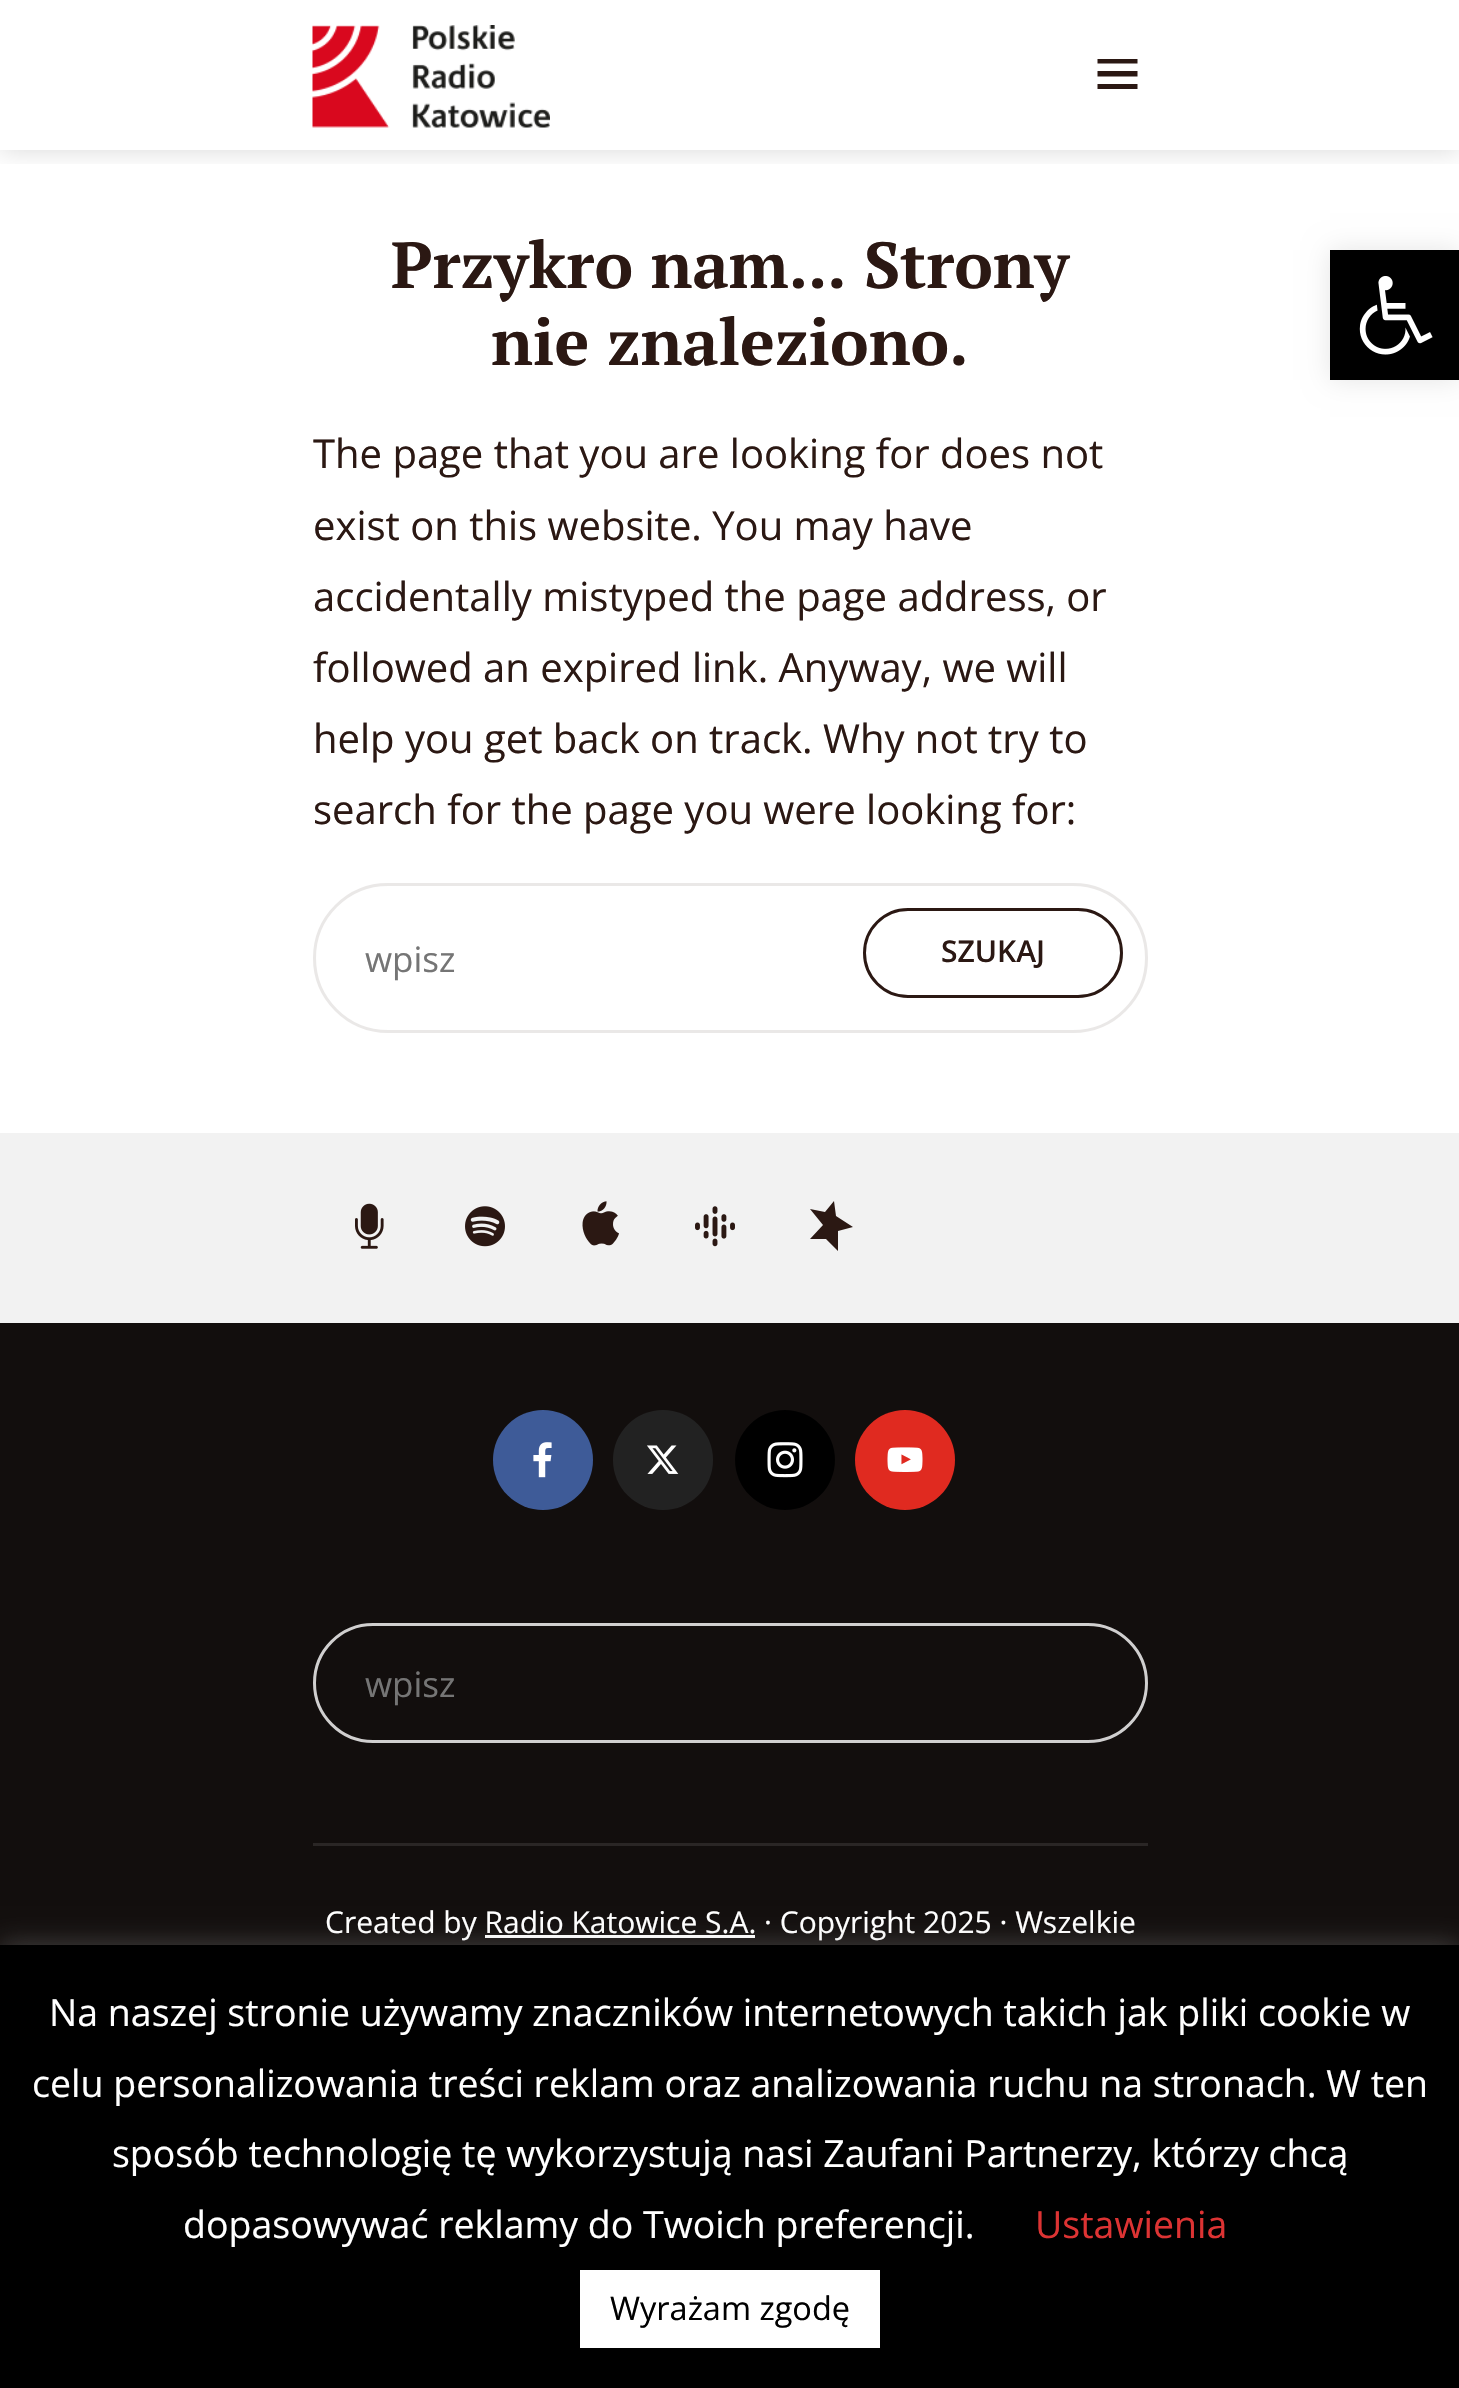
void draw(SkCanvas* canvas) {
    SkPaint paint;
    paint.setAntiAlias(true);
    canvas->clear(0xFFFFFFFF);
    canvas->save();
    canvas->clipRect(SkRect::MakeXYWH(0, 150, 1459, 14));
    paint.setColor(0x26000000);
    paint.setMaskFilter(SkMaskFilter::MakeBlur(kNormal_SkBlurStyle, 12.5f));
    canvas->drawRect(SkRect::MakeXYWH(0, 0, 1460, 150), paint);
    paint.setMaskFilter(nullptr);
    canvas->restore();
    canvas->drawImageRect(SkImages::DeferredFromEncodedData(SkData::MakeFromFileName("img1.png")), SkRect::MakeXYWH(312, 25, 238, 103), SkSamplingOptions());
    paint.setColor(0xFF2B1813);
    canvas->drawPath(SkPathBuilder().moveTo(1097.5f, 76.5f).lineTo(1097.5f, 71).lineTo(1137.5f, 71).lineTo(1137.5f, 76.5f).close().moveTo(1097.5f, 89).lineTo(1097.5f, 84).lineTo(1137.5f, 84).lineTo(1137.5f, 89).close().moveTo(1097.5f, 63.5f).lineTo(1097.5f, 59).lineTo(1137.5f, 59).lineTo(1137.5f, 63.5f).close().detach(), paint);
    SkFont font1(fontMgr->matchFamilyStyle("PT Serif", SkFontStyle::Bold()), 65);
    font1.setSubpixel(true);
    canvas->drawString("Przykro nam... Strony", 391, 288, font1, paint);
    canvas->drawString("nie znaleziono.", 491, 365, font1, paint);
    SkFont font2(fontMgr->matchFamilyStyle("Open Sans", SkFontStyle::Normal()), 40);
    font2.setSubpixel(true);
    canvas->drawString("The page that you are looking for does not", 313, 468, font2, paint);
    canvas->drawString("exist on this website. You may have", 313, 540, font2, paint);
    canvas->drawString("accidentally mistyped the page address, or", 313, 611, font2, paint);
    canvas->drawString("followed an expired link. Anyway, we will", 313, 682, font2, paint);
    canvas->drawString("help you get back on track. Why not try to", 313, 753, font2, paint);
    canvas->drawString("search for the page you were looking for:", 313, 824, font2, paint);
    paint.setStyle(SkPaint::kStroke_Style);
    paint.setStrokeWidth(3);
    paint.setColor(0xFFEAE8E7);
    canvas->drawRoundRect(SkRect::MakeXYWH(314.5f, 884.5f, 832, 147), 73.5f, 73.5f, paint);
    SkFont font3(fontMgr->matchFamilyStyle("Open Sans", SkFontStyle::Normal()), 35);
    font3.setSubpixel(true);
    paint.setStyle(SkPaint::kFill_Style);
    paint.setColor(0xFF757575);
    canvas->drawString("wpisz", 365, 972, font3, paint);
    paint.setStyle(SkPaint::kStroke_Style);
    paint.setColor(0xFF2B1813);
    canvas->drawRoundRect(SkRect::MakeXYWH(864.5f, 909.5f, 257, 87), 43.5f, 43.5f, paint);
    SkFont font4(fontMgr->matchFamilyStyle("Open Sans", SkFontStyle(600, SkFontStyle::kNormal_Width, SkFontStyle::kUpright_Slant)), 30);
    font4.setSubpixel(true);
    paint.setStyle(SkPaint::kFill_Style);
    canvas->drawString("SZUKAJ", 941, 962, font4, paint);
    paint.setColor(0xFFF2F2F2);
    canvas->drawRect(SkRect::MakeXYWH(0, 1133, 1459, 190), paint);
    canvas->drawImageRect(SkImages::DeferredFromEncodedData(SkData::MakeFromFileName("img2.png")), SkRect::MakeXYWH(355, 1203, 29, 46), SkSamplingOptions());
    canvas->drawImageRect(SkImages::DeferredFromEncodedData(SkData::MakeFromFileName("img3.png")), SkRect::MakeXYWH(465, 1206, 40, 41), SkSamplingOptions());
    canvas->drawImageRect(SkImages::DeferredFromEncodedData(SkData::MakeFromFileName("img4.png")), SkRect::MakeXYWH(582, 1201, 37, 45), SkSamplingOptions());
    canvas->drawImageRect(SkImages::DeferredFromEncodedData(SkData::MakeFromFileName("img5.png")), SkRect::MakeXYWH(695, 1206, 40, 41), SkSamplingOptions());
    paint.setColor(0xFF2B1813);
    canvas->drawPath(SkPathBuilder().moveTo(823, 1225).lineTo(810, 1209).lineTo(825, 1212).lineTo(834, 1201).lineTo(836, 1216).lineTo(853, 1227).lineTo(838, 1231).lineTo(838, 1251).lineTo(826, 1239).lineTo(810, 1239).close().detach(), paint);
    paint.setColor(0xFF120E0D);
    canvas->drawRect(SkRect::MakeXYWH(0, 1323, 1459, 622), paint);
    paint.setColor(0xFF3E5B98);
    canvas->drawCircle(543, 1460, 50, paint);
    canvas->drawImageRect(SkImages::DeferredFromEncodedData(SkData::MakeFromFileName("img6.png")), SkRect::MakeXYWH(533, 1442, 19, 36), SkSamplingOptions());
    paint.setColor(0xFF222222);
    canvas->drawCircle(663, 1460, 50, paint);
    canvas->drawImageRect(SkImages::DeferredFromEncodedData(SkData::MakeFromFileName("img7.png")), SkRect::MakeXYWH(647, 1445, 32, 29), SkSamplingOptions());
    paint.setColor(0xFF000000);
    canvas->drawCircle(785, 1460, 50, paint);
    canvas->drawImageRect(SkImages::DeferredFromEncodedData(SkData::MakeFromFileName("img8.png")), SkRect::MakeXYWH(767, 1442, 36, 36), SkSamplingOptions());
    paint.setColor(0xFFE02A20);
    canvas->drawCircle(905, 1460, 50, paint);
    canvas->drawImageRect(SkImages::DeferredFromEncodedData(SkData::MakeFromFileName("img9.png")), SkRect::MakeXYWH(887, 1447, 36, 25), SkSamplingOptions());
    paint.setStyle(SkPaint::kStroke_Style);
    paint.setColor(0xFFD0CFCF);
    canvas->drawRoundRect(SkRect::MakeXYWH(314.5f, 1624.5f, 832, 117), 58.5f, 58.5f, paint);
    paint.setStyle(SkPaint::kFill_Style);
    paint.setColor(0xFF757575);
    canvas->drawString("wpisz", 365, 1697, font3, paint);
    paint.setColor(0xFF2A2625);
    canvas->drawRect(SkRect::MakeXYWH(313, 1843, 835, 3), paint);
    SkFont font5(fontMgr->matchFamilyStyle("Open Sans", SkFontStyle::Normal()), 30);
    font5.setSubpixel(true);
    paint.setColor(0xFFFFFFFF);
    canvas->drawString("Created by Radio Katowice S.A. · Copyright 2025 · Wszelkie", 325, 1933, font5, paint);
    canvas->drawRect(SkRect::MakeXYWH(485, 1935, 270, 3), paint);
    paint.setColor(0x1A000000);
    paint.setMaskFilter(SkMaskFilter::MakeBlur(kNormal_SkBlurStyle, 12.5f));
    canvas->drawRect(SkRect::MakeXYWH(1330, 250, 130, 130), paint);
    paint.setMaskFilter(nullptr);
    paint.setColor(0xFF000000);
    canvas->drawRect(SkRect::MakeXYWH(1330, 250, 129, 130), paint);
    canvas->drawImageRect(SkImages::DeferredFromEncodedData(SkData::MakeFromFileName("img10.png")), SkRect::MakeXYWH(1359, 276, 74, 79), SkSamplingOptions());
    paint.setColor(0x4DACABAB);
    paint.setMaskFilter(SkMaskFilter::MakeBlur(kNormal_SkBlurStyle, 12.5f));
    canvas->drawRect(SkRect::MakeXYWH(0, 1943, 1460, 445), paint);
    paint.setMaskFilter(nullptr);
    paint.setColor(0xFF000000);
    canvas->drawRect(SkRect::MakeXYWH(0, 1945, 1459, 443), paint);
    SkFont font6(fontMgr->matchFamilyStyle("Open Sans", SkFontStyle::Normal()), 37.5f);
    font6.setSubpixel(true);
    paint.setColor(0xFFFFFFFF);
    canvas->drawString("Na naszej stronie używamy znaczników internetowych takich jak pliki cookie w", 49, 2026, font6, paint);
    canvas->drawString("celu personalizowania treści reklam oraz analizowania ruchu na stronach. W ten", 32, 2097, font6, paint);
    canvas->drawString("sposób technologię tę wykorzystują nasi Zaufani Partnerzy, którzy chcą", 112, 2167, font6, paint);
    canvas->drawString("dopasowywać reklamy do Twoich preferencji.", 183, 2238, font6, paint);
    paint.setColor(0xFFDD3333);
    canvas->drawString("Ustawienia", 1035, 2238, font6, paint);
    paint.setColor(0xFFFFFFFF);
    canvas->drawRect(SkRect::MakeXYWH(580, 2270, 300, 78), paint);
    SkFont font7(fontMgr->matchFamilyStyle("Open Sans", SkFontStyle::Normal()), 32.5f);
    font7.setSubpixel(true);
    paint.setColor(0xFF000000);
    canvas->drawString("Wyrażam zgodę", 610, 2320, font7, paint);
}
